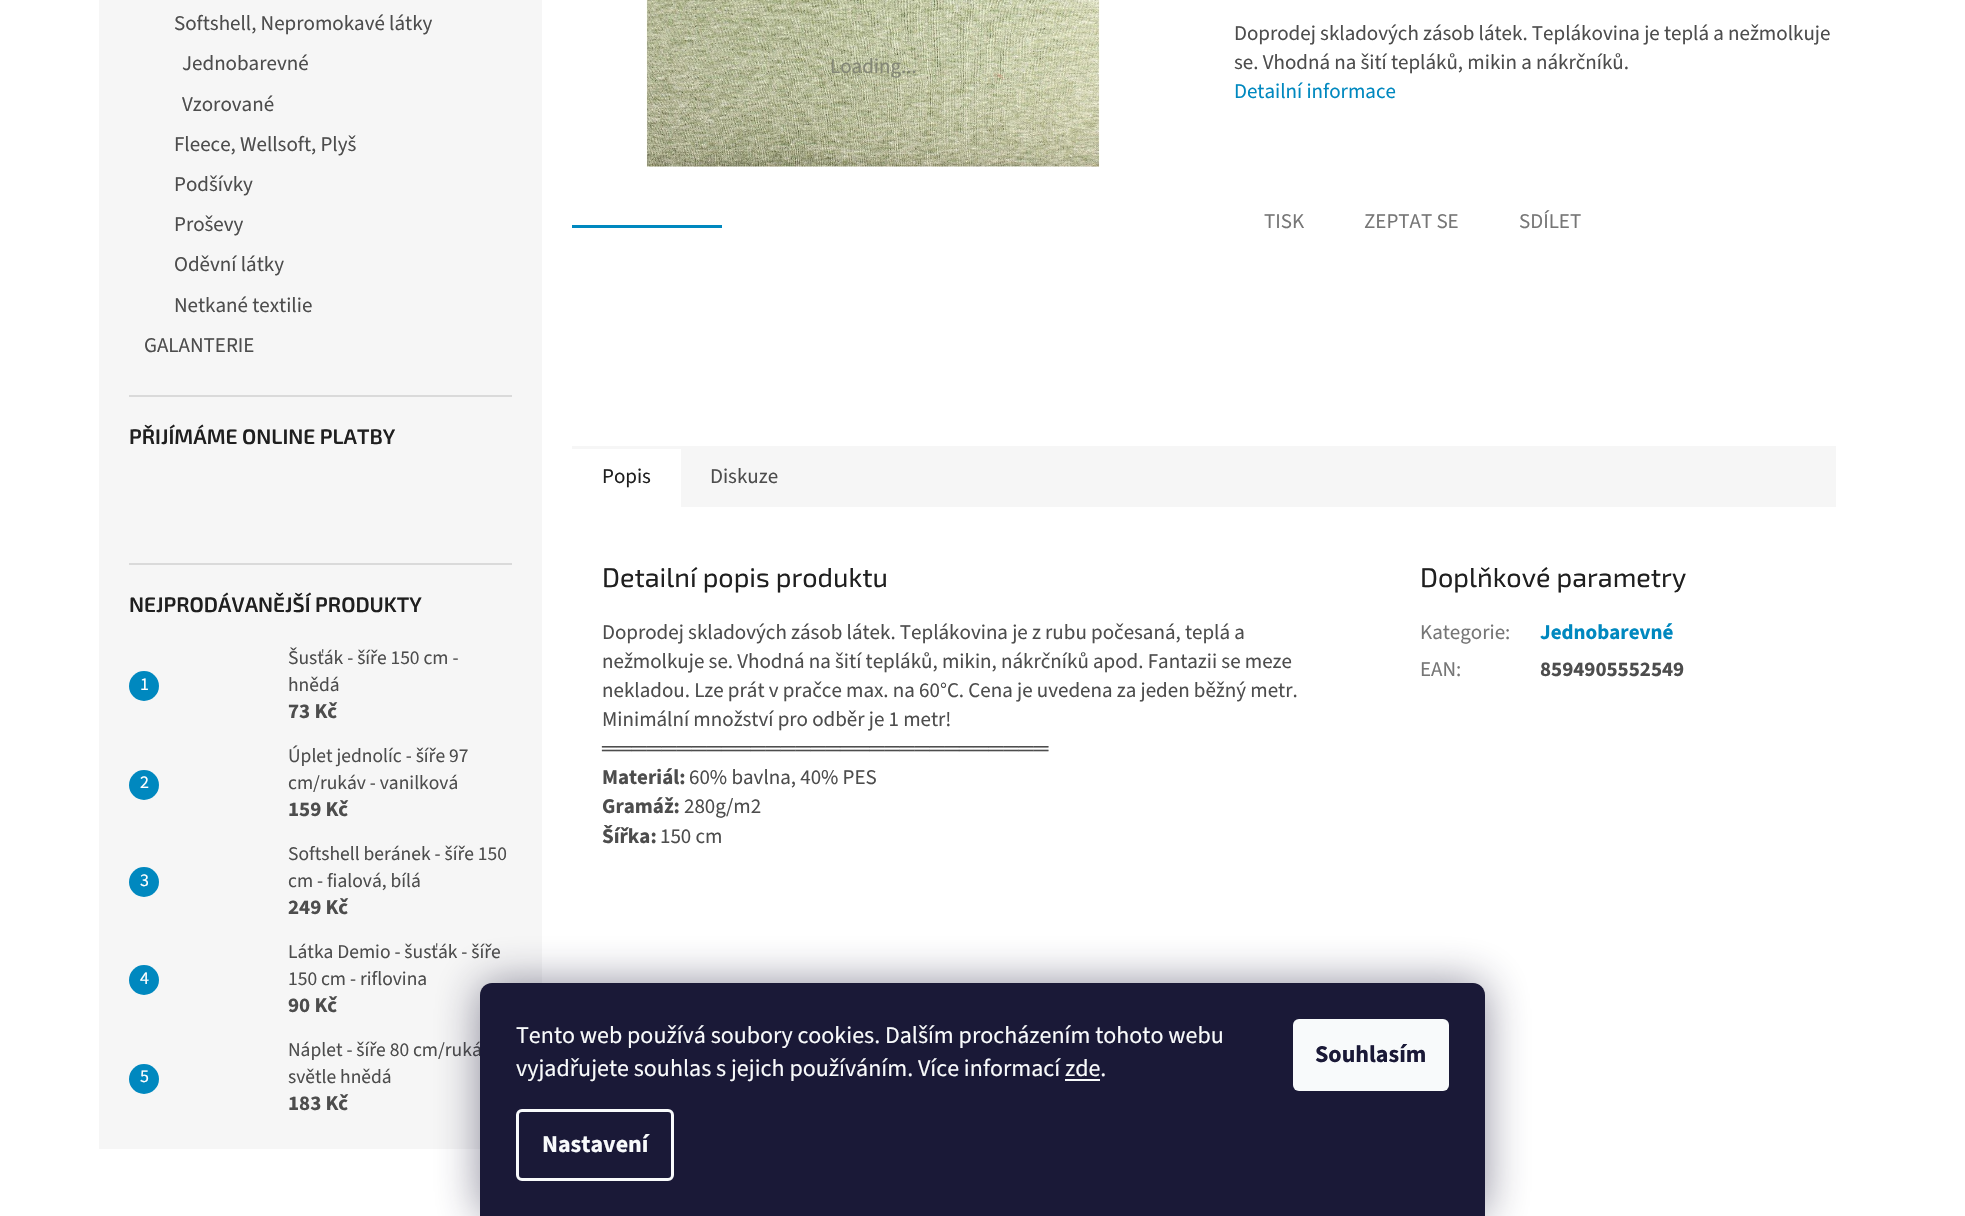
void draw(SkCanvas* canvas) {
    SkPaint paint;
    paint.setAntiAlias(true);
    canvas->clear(0xFFFFFFFF);
    paint.setColor(0xFFF6F6F6);
    canvas->drawRect(SkRect::MakeXYWH(99, 0, 443, 1149), paint);
    paint.setColor(0xFFDADADA);
    canvas->drawRect(SkRect::MakeXYWH(129, 395, 383, 2), paint);
    SkFont font1(fontMgr->matchFamilyStyle("Source Sans 3", SkFontStyle::Normal()), 21);
    font1.setSubpixel(true);
    paint.setColor(0xFF4D4D4D);
    canvas->drawString("Softshell, Nepromokavé látky", 174, 30, font1, paint);
    canvas->drawString("Jednobarevné", 182, 70, font1, paint);
    canvas->drawString("Vzorované", 182, 111, font1, paint);
    canvas->drawString("Fleece, Wellsoft, Plyš", 174, 151, font1, paint);
    canvas->drawString("Podšívky", 174, 191, font1, paint);
    canvas->drawString("Proševy", 174, 231, font1, paint);
    canvas->drawString("Oděvní látky", 174, 271, font1, paint);
    canvas->drawString("Netkané textilie", 174, 312, font1, paint);
    canvas->drawString("GALANTERIE", 144, 352, font1, paint);
    paint.setColor(0xFFDADADA);
    canvas->drawRect(SkRect::MakeXYWH(129, 563, 383, 2), paint);
    SkFont font2(fontMgr->matchFamilyStyle("Exo 2", SkFontStyle(600, SkFontStyle::kNormal_Width, SkFontStyle::kUpright_Slant)), 21);
    font2.setSubpixel(true);
    paint.setColor(0xFF1F1F1F);
    canvas->drawString("PŘIJÍMÁME ONLINE PLATBY", 129, 444, font2, paint);
    canvas->drawString("NEJPRODÁVANĚJŠÍ PRODUKTY", 129, 612, font2, paint);
    paint.setColor(0xFF0088BF);
    canvas->drawCircle(144, 686, 15, paint);
    SkFont font3(fontMgr->matchFamilyStyle("Source Sans 3", SkFontStyle::Normal()), 18);
    font3.setSubpixel(true);
    paint.setColor(0xFFFFFFFF);
    canvas->drawString("1", 140, 690, font3, paint);
    SkFont font4(fontMgr->matchFamilyStyle("Source Sans 3", SkFontStyle::Normal()), 19.5f);
    font4.setSubpixel(true);
    paint.setColor(0xFF4D4D4D);
    canvas->drawString("Šusťák - šíře 150 cm -", 288, 664, font4, paint);
    canvas->drawString("hnědá", 288, 691, font4, paint);
    SkFont font5(fontMgr->matchFamilyStyle("Source Sans 3", SkFontStyle::Bold()), 21);
    font5.setSubpixel(true);
    canvas->drawString("73 Kč", 288, 718, font5, paint);
    paint.setColor(0xFF0088BF);
    canvas->drawCircle(144, 785, 15, paint);
    paint.setColor(0xFFFFFFFF);
    canvas->drawString("2", 140, 788, font3, paint);
    paint.setColor(0xFF4D4D4D);
    canvas->drawString("Úplet jednolíc - šíře 97", 288, 762, font4, paint);
    canvas->drawString("cm/rukáv - vanilková", 288, 789, font4, paint);
    canvas->drawString("159 Kč", 288, 816, font5, paint);
    paint.setColor(0xFF0088BF);
    canvas->drawCircle(144, 882, 15, paint);
    paint.setColor(0xFFFFFFFF);
    canvas->drawString("3", 140, 886, font3, paint);
    paint.setColor(0xFF4D4D4D);
    canvas->drawString("Softshell beránek - šíře 150", 288, 860, font4, paint);
    canvas->drawString("cm - fialová, bílá", 288, 887, font4, paint);
    canvas->drawString("249 Kč", 288, 914, font5, paint);
    paint.setColor(0xFF0088BF);
    canvas->drawCircle(144, 980, 15, paint);
    paint.setColor(0xFFFFFFFF);
    canvas->drawString("4", 140, 984, font3, paint);
    paint.setColor(0xFF4D4D4D);
    canvas->drawString("Látka Demio - šusťák - šíře", 288, 958, font4, paint);
    canvas->drawString("150 cm - riflovina", 288, 985, font4, paint);
    canvas->drawString("90 Kč", 288, 1012, font5, paint);
    paint.setColor(0xFF0088BF);
    canvas->drawCircle(144, 1079, 15, paint);
    paint.setColor(0xFFFFFFFF);
    canvas->drawString("5", 140, 1082, font3, paint);
    paint.setColor(0xFF4D4D4D);
    canvas->drawString("Náplet - šíře 80 cm/ruká", 288, 1056, font4, paint);
    canvas->drawString("světle hnědá", 288, 1083, font4, paint);
    canvas->drawString("183 Kč", 288, 1110, font5, paint);
    canvas->drawImageRect(SkImages::DeferredFromEncodedData(SkData::MakeFromFileName("img1.png")), SkRect::MakeXYWH(646, 0, 454, 167), SkSamplingOptions());
    paint.setColor(0xFF848776);
    canvas->drawString("Loading...", 830, 73, font1, paint);
    paint.setColor(0xFF0088BF);
    canvas->drawRect(SkRect::MakeXYWH(572, 225, 150, 3), paint);
    paint.setColor(0xFF4D4D4D);
    canvas->drawString("Doprodej skladových zásob látek. Teplákovina je teplá a nežmolkuje", 1234, 40, font1, paint);
    canvas->drawString("se. Vhodná na šití tepláků, mikin a nákrčníků.", 1234, 69, font1, paint);
    paint.setColor(0xFF0088BF);
    canvas->drawString("Detailní informace", 1234, 98, font1, paint);
    paint.setColor(0xFF767676);
    canvas->drawString("TISK", 1264, 228, font1, paint);
    canvas->drawString("ZEPTAT SE", 1364, 228, font1, paint);
    canvas->drawString("SDÍLET", 1519, 228, font1, paint);
    paint.setColor(0xFFF6F6F6);
    canvas->drawRect(SkRect::MakeXYWH(681, 446, 1155, 61), paint);
    canvas->drawRect(SkRect::MakeXYWH(572, 446, 109, 3), paint);
    paint.setColor(0xFF1F1F1F);
    canvas->drawString("Popis", 602, 483, font1, paint);
    paint.setColor(0xFF4D4D4D);
    canvas->drawString("Diskuze", 710, 483, font1, paint);
    SkFont font6(fontMgr->matchFamilyStyle("Exo 2", SkFontStyle::Normal()), 27);
    font6.setSubpixel(true);
    paint.setColor(0xFF1F1F1F);
    canvas->drawString("Detailní popis produktu", 602, 587, font6, paint);
    paint.setColor(0xFF4D4D4D);
    canvas->drawString("Doprodej skladových zásob látek. Teplákovina je z rubu počesaná, teplá a", 602, 639, font1, paint);
    canvas->drawString("nežmolkuje se. Vhodná na šití tepláků, mikin, nákrčníků apod. Fantazii se meze", 602, 668, font1, paint);
    canvas->drawString("nekladou. Lze prát v pračce max. na 60°C. Cena je uvedena za jeden běžný metr.", 602, 697, font1, paint);
    canvas->drawString("Minimální množství pro odběr je 1 metr!", 602, 726, font1, paint);
    SkFont font7(fontMgr->matchFamilyStyle("Liberation Sans", SkFontStyle::Bold()), 21);
    font7.setSubpixel(true);
    canvas->drawString("══════════════════════════════", 602, 755, font7, paint);
    canvas->drawString("Materiál:", 602, 784, font5, paint);
    canvas->drawString("60% bavlna, 40% PES", 689, 784, font1, paint);
    canvas->drawString("Gramáž:", 602, 813, font5, paint);
    canvas->drawString("280g/m2", 684, 813, font1, paint);
    canvas->drawString("Šířka:", 602, 843, font5, paint);
    canvas->drawString("150 cm", 660, 843, font1, paint);
    paint.setColor(0xFF1F1F1F);
    canvas->drawString("Doplňkové parametry", 1420, 587, font6, paint);
    paint.setColor(0xFF767676);
    canvas->drawString("Kategorie:", 1420, 639, font1, paint);
    paint.setColor(0xFF0088BF);
    canvas->drawString("Jednobarevné", 1540, 639, font5, paint);
    paint.setColor(0xFF767676);
    canvas->drawString("EAN:", 1420, 676, font1, paint);
    paint.setColor(0xFF4D4D4D);
    canvas->drawString("8594905552549", 1540, 676, font5, paint);
    paint.setColor(0x801B1939);
    paint.setMaskFilter(SkMaskFilter::MakeBlur(kNormal_SkBlurStyle, 22.5f));
    canvas->drawRoundRect(SkRect::MakeXYWH(480, 983, 1005, 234), 12, 12, paint);
    paint.setMaskFilter(nullptr);
    paint.setColor(0xFF1A1937);
    canvas->drawPath(SkPathBuilder().moveTo(492, 983).lineTo(1473, 983).cubicTo(1479.5f, 983, 1485, 988.5f, 1485, 995).lineTo(1485, 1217).lineTo(480, 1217).lineTo(480, 995).cubicTo(480, 988.5f, 485.5f, 983, 492, 983).close().detach(), paint);
    SkFont font8(fontMgr->matchFamilyStyle("Source Sans 3", SkFontStyle::Normal()), 24);
    font8.setSubpixel(true);
    paint.setColor(0xFFF8FAFB);
    canvas->drawString("Tento web používá soubory cookies. Dalším procházením tohoto webu", 516, 1043, font8, paint);
    canvas->drawString("vyjadřujete souhlas s jejich používáním. Více informací zde.", 516, 1076, font8, paint);
    canvas->drawRect(SkRect::MakeXYWH(1065, 1079, 35, 2), paint);
    paint.setStyle(SkPaint::kStroke_Style);
    paint.setStrokeWidth(3);
    canvas->drawRoundRect(SkRect::MakeXYWH(517.5f, 1110.5f, 155, 69), 4.5f, 4.5f, paint);
    SkFont font9(fontMgr->matchFamilyStyle("Source Sans 3", SkFontStyle::Bold()), 24);
    font9.setSubpixel(true);
    paint.setStyle(SkPaint::kFill_Style);
    canvas->drawString("Nastavení", 542, 1152, font9, paint);
    canvas->drawRoundRect(SkRect::MakeXYWH(1293, 1019, 156, 72), 6, 6, paint);
    paint.setColor(0xFF1A1937);
    canvas->drawString("Souhlasím", 1315, 1062, font9, paint);
}
